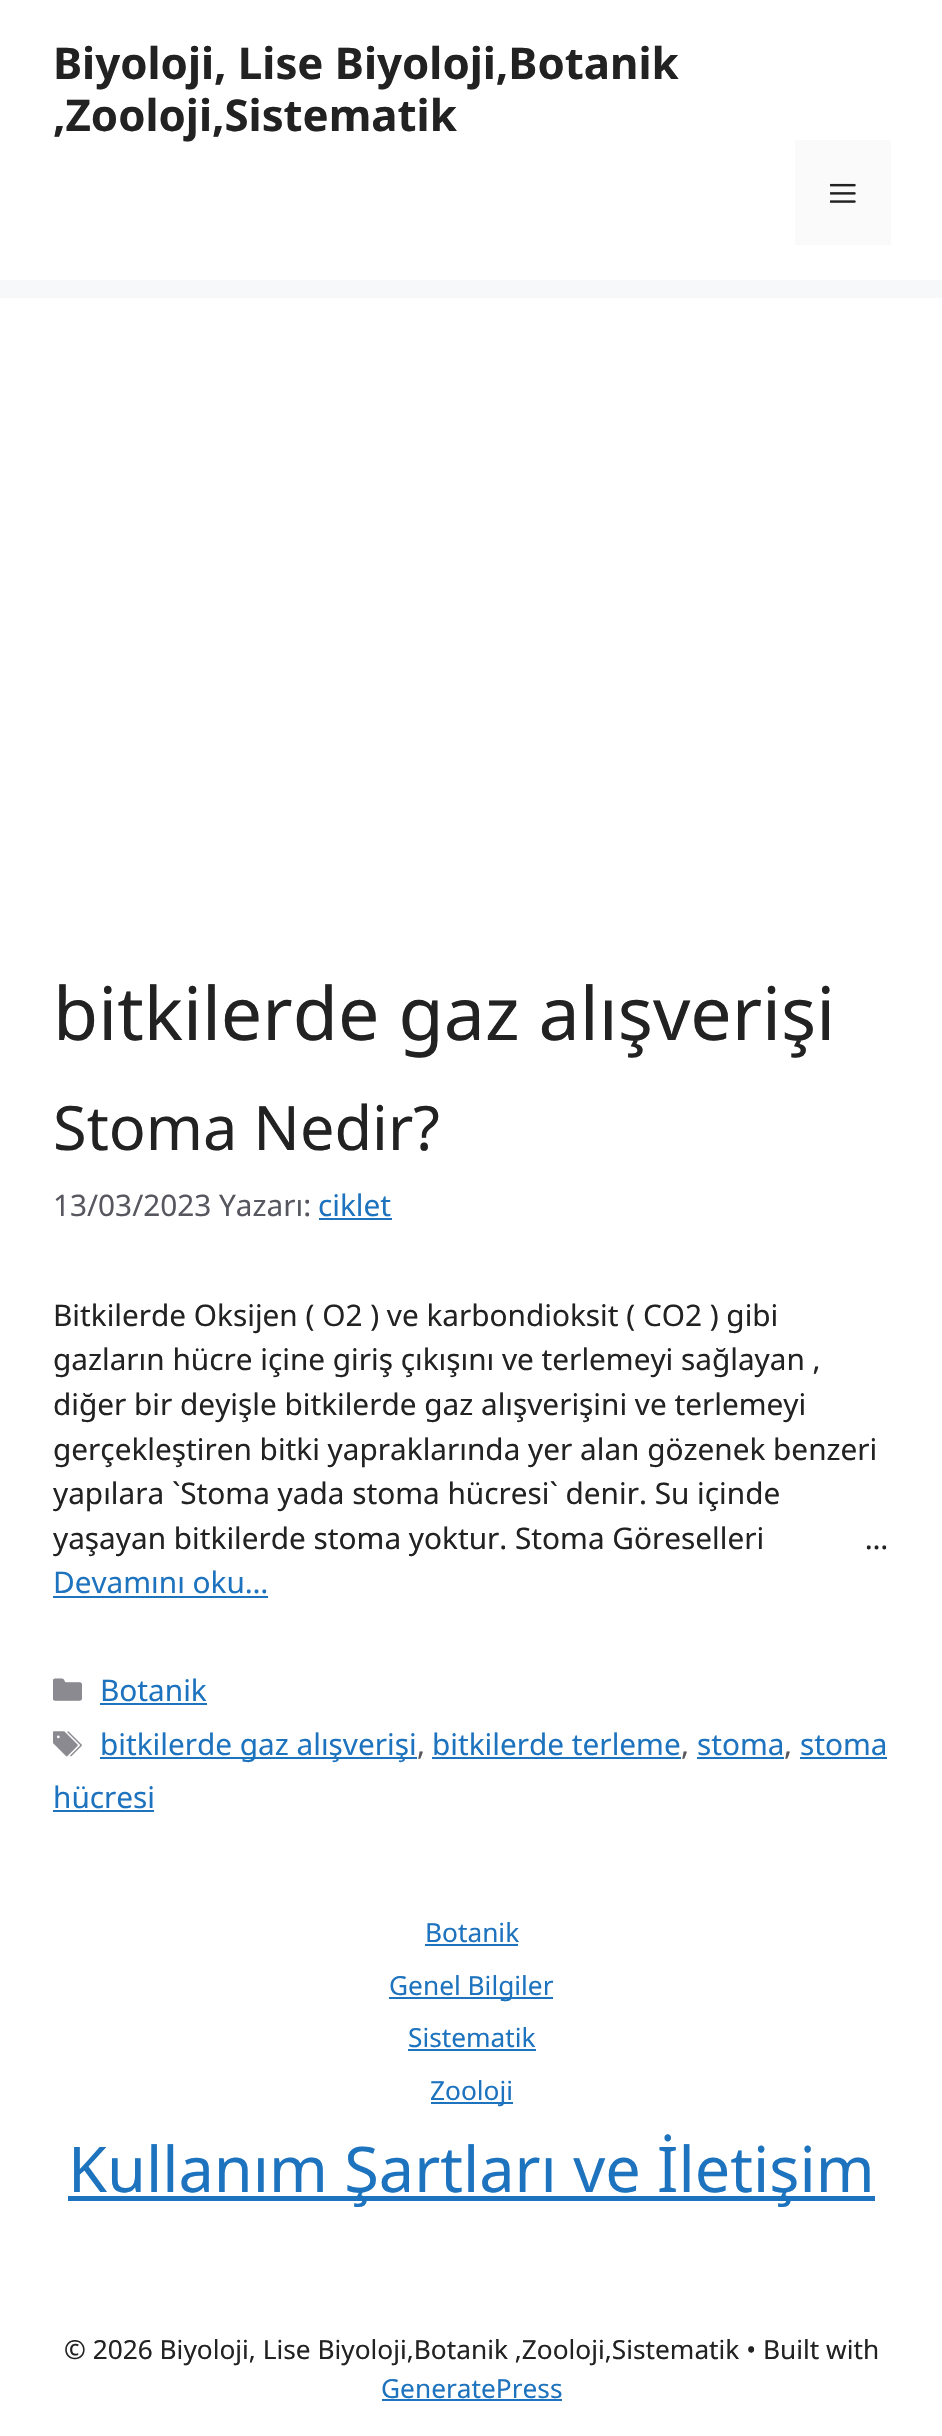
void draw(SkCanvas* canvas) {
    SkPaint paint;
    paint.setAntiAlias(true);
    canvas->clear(0xFFF7F8F9);
    paint.setColor(0xFFFFFFFF);
    canvas->drawRect(SkRect::MakeXYWH(0, 0, 942, 280), paint);
    SkFont font1(fontMgr->matchFamilyStyle("Noto Sans", SkFontStyle::Bold()), 43.75f);
    font1.setSubpixel(true);
    paint.setColor(0xFF222222);
    canvas->drawString("Biyoloji, Lise Biyoloji,Botanik", 53, 79, font1, paint);
    canvas->drawString(",Zooloji,Sistematik", 53, 131, font1, paint);
    paint.setColor(0xFFFAFAFA);
    canvas->drawRect(SkRect::MakeXYWH(795, 140, 96, 105), paint);
    canvas->drawImageRect(SkImages::DeferredFromEncodedData(SkData::MakeFromFileName("img1.png")), SkRect::MakeXYWH(830, 183, 26, 20), SkSamplingOptions());
    paint.setColor(0xFFFFFFFF);
    canvas->drawRect(SkRect::MakeXYWH(0, 298, 942, 2138), paint);
    SkFont font2(fontMgr->matchFamilyStyle("Noto Sans", SkFontStyle::Normal()), 73.5f);
    font2.setSubpixel(true);
    paint.setColor(0xFF222222);
    canvas->drawString("bitkilerde gaz alışverişi", 53, 1040, font2, paint);
    SkFont font3(fontMgr->matchFamilyStyle("Noto Sans", SkFontStyle::Normal()), 61.25f);
    font3.setSubpixel(true);
    canvas->drawString("Stoma Nedir?", 53, 1150, font3, paint);
    SkFont font4(fontMgr->matchFamilyStyle("Noto Sans", SkFontStyle::Normal()), 29.75f);
    font4.setSubpixel(true);
    paint.setColor(0xFF575760);
    canvas->drawString("13/03/2023 Yazarı:", 53, 1216, font4, paint);
    paint.setColor(0xFF1E73BE);
    canvas->drawString("ciklet", 318, 1216, font4, paint);
    canvas->drawRect(SkRect::MakeXYWH(319, 1218, 73, 2), paint);
    paint.setColor(0xFF222222);
    canvas->drawString("Bitkilerde Oksijen ( O2 ) ve karbondioksit ( CO2 ) gibi", 53, 1326, font4, paint);
    canvas->drawString("gazların hücre içine giriş çıkışını ve terlemeyi sağlayan ,", 53, 1370, font4, paint);
    canvas->drawString("diğer bir deyişle bitkilerde gaz alışverişini ve terlemeyi", 53, 1415, font4, paint);
    canvas->drawString("gerçekleştiren bitki yapraklarında yer alan gözenek benzeri", 53, 1460, font4, paint);
    canvas->drawString("yapılara `Stoma yada stoma hücresi` denir. Su içinde", 53, 1504, font4, paint);
    canvas->drawString("yaşayan bitkilerde stoma yoktur. Stoma Göreselleri             …", 53, 1549, font4, paint);
    paint.setColor(0xFF1E73BE);
    canvas->drawString("Devamını oku…", 53, 1593, font4, paint);
    canvas->drawRect(SkRect::MakeXYWH(53, 1596, 215, 2), paint);
    canvas->drawImageRect(SkImages::DeferredFromEncodedData(SkData::MakeFromFileName("img2.png")), SkRect::MakeXYWH(53, 1678, 29, 23), SkSamplingOptions());
    canvas->drawString("Botanik", 100, 1701, font4, paint);
    canvas->drawRect(SkRect::MakeXYWH(100, 1703, 107, 2), paint);
    canvas->drawImageRect(SkImages::DeferredFromEncodedData(SkData::MakeFromFileName("img3.png")), SkRect::MakeXYWH(53, 1731, 29, 26), SkSamplingOptions());
    canvas->drawRect(SkRect::MakeXYWH(100, 1757, 317, 2), paint);
    canvas->drawString("bitkilerde gaz alışverişi", 100, 1755, font4, paint);
    paint.setColor(0xFF575760);
    canvas->drawString(",", 417, 1755, font4, paint);
    paint.setColor(0xFF1E73BE);
    canvas->drawString("bitkilerde terleme", 432, 1755, font4, paint);
    canvas->drawRect(SkRect::MakeXYWH(432, 1757, 249, 2), paint);
    paint.setColor(0xFF575760);
    canvas->drawString(",", 681, 1755, font4, paint);
    paint.setColor(0xFF1E73BE);
    canvas->drawString("stoma", 697, 1755, font4, paint);
    canvas->drawRect(SkRect::MakeXYWH(697, 1757, 87, 2), paint);
    paint.setColor(0xFF575760);
    canvas->drawString(",", 784, 1755, font4, paint);
    paint.setColor(0xFF1E73BE);
    canvas->drawString("stoma", 800, 1755, font4, paint);
    canvas->drawRect(SkRect::MakeXYWH(800, 1757, 87, 2), paint);
    canvas->drawString("hücresi", 53, 1808, font4, paint);
    canvas->drawRect(SkRect::MakeXYWH(53, 1810, 101, 2), paint);
    SkFont font5(fontMgr->matchFamilyStyle("Noto Sans", SkFontStyle::Normal()), 26.25f);
    font5.setSubpixel(true);
    canvas->drawString("Botanik", 425, 1942, font5, paint);
    canvas->drawRect(SkRect::MakeXYWH(425, 1944, 93, 2), paint);
    canvas->drawRect(SkRect::MakeXYWH(389, 1997, 164, 2), paint);
    canvas->drawString("Genel Bilgiler", 389, 1995, font5, paint);
    canvas->drawString("Sistematik", 408, 2047, font5, paint);
    canvas->drawRect(SkRect::MakeXYWH(408, 2049, 128, 2), paint);
    canvas->drawRect(SkRect::MakeXYWH(431, 2102, 82, 2), paint);
    canvas->drawString("Zooloji", 430, 2100, font5, paint);
    canvas->drawRect(SkRect::MakeXYWH(68, 2196, 807, 5), paint);
    SkFont font6(fontMgr->matchFamilyStyle("Noto Sans", SkFontStyle::Normal()), 63);
    font6.setSubpixel(true);
    canvas->drawString("Kullanım Şartları ve İletişim", 68, 2192, font6, paint);
    paint.setColor(0xFF222222);
    canvas->drawString("© 2026 Biyoloji, Lise Biyoloji,Botanik ,Zooloji,Sistematik • Built with", 64, 2359, font5, paint);
    paint.setColor(0xFF1E73BE);
    canvas->drawString("GeneratePress", 381, 2398, font5, paint);
    canvas->drawRect(SkRect::MakeXYWH(382, 2399, 180, 2), paint);
}
